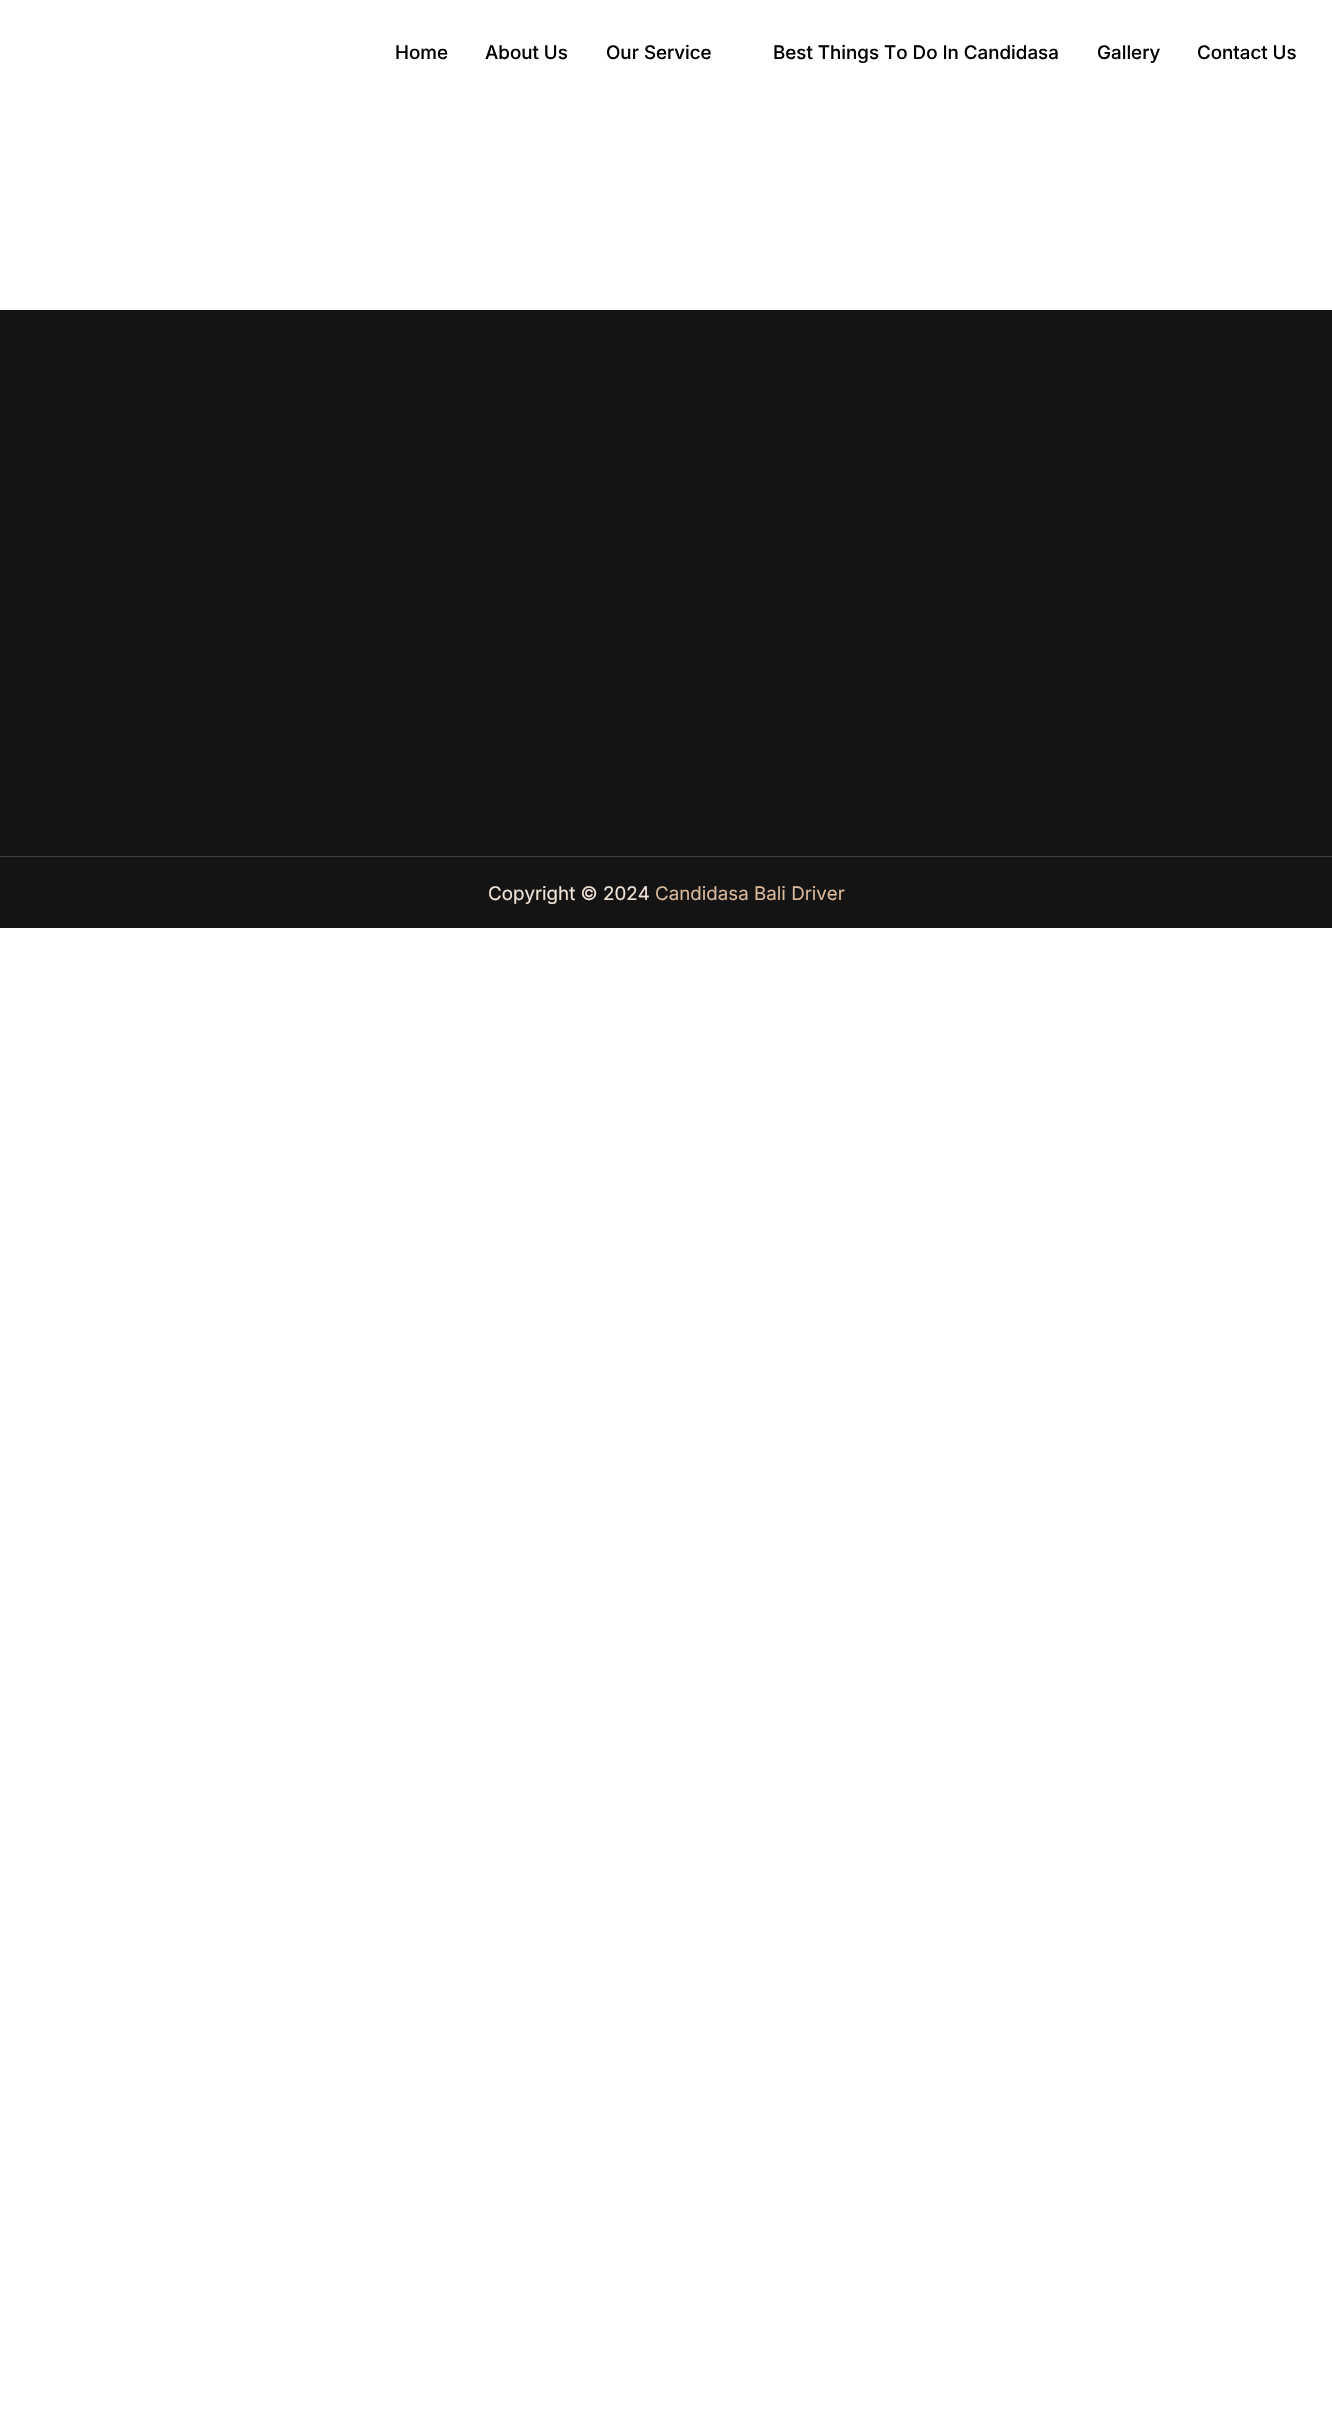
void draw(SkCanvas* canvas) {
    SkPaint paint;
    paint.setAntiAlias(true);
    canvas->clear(0xFFFFFFFF);
    SkFont font1(fontMgr->matchFamilyStyle("Inter", SkFontStyle(500, SkFontStyle::kNormal_Width, SkFontStyle::kUpright_Slant)), 18.75f);
    font1.setSubpixel(true);
    paint.setColor(0xFF000000);
    canvas->drawString("Home", 395, 59, font1, paint);
    canvas->drawString("About Us", 485, 59, font1, paint);
    canvas->drawString("Our Service", 606, 59, font1, paint);
    canvas->drawString("Best Things To Do In Candidasa", 773, 59, font1, paint);
    canvas->drawString("Gallery", 1097, 59, font1, paint);
    canvas->drawString("Contact Us", 1197, 59, font1, paint);
    paint.setColor(0xFF141414);
    canvas->drawRect(SkRect::MakeXYWH(0, 310, 1332, 618), paint);
    paint.setColor(0xFF3E3E3E);
    canvas->drawRect(SkRect::MakeXYWH(0, 856, 1332, 1), paint);
    SkFont font2(fontMgr->matchFamilyStyle("Inter", SkFontStyle::Normal()), 18.75f);
    font2.setSubpixel(true);
    paint.setColor(0xFFF1E3D6);
    canvas->drawString("Copyright © 2024", 488, 900, font2, paint);
    paint.setColor(0xFFDAB89A);
    canvas->drawString("Candidasa Bali Driver", 655, 900, font2, paint);
}
